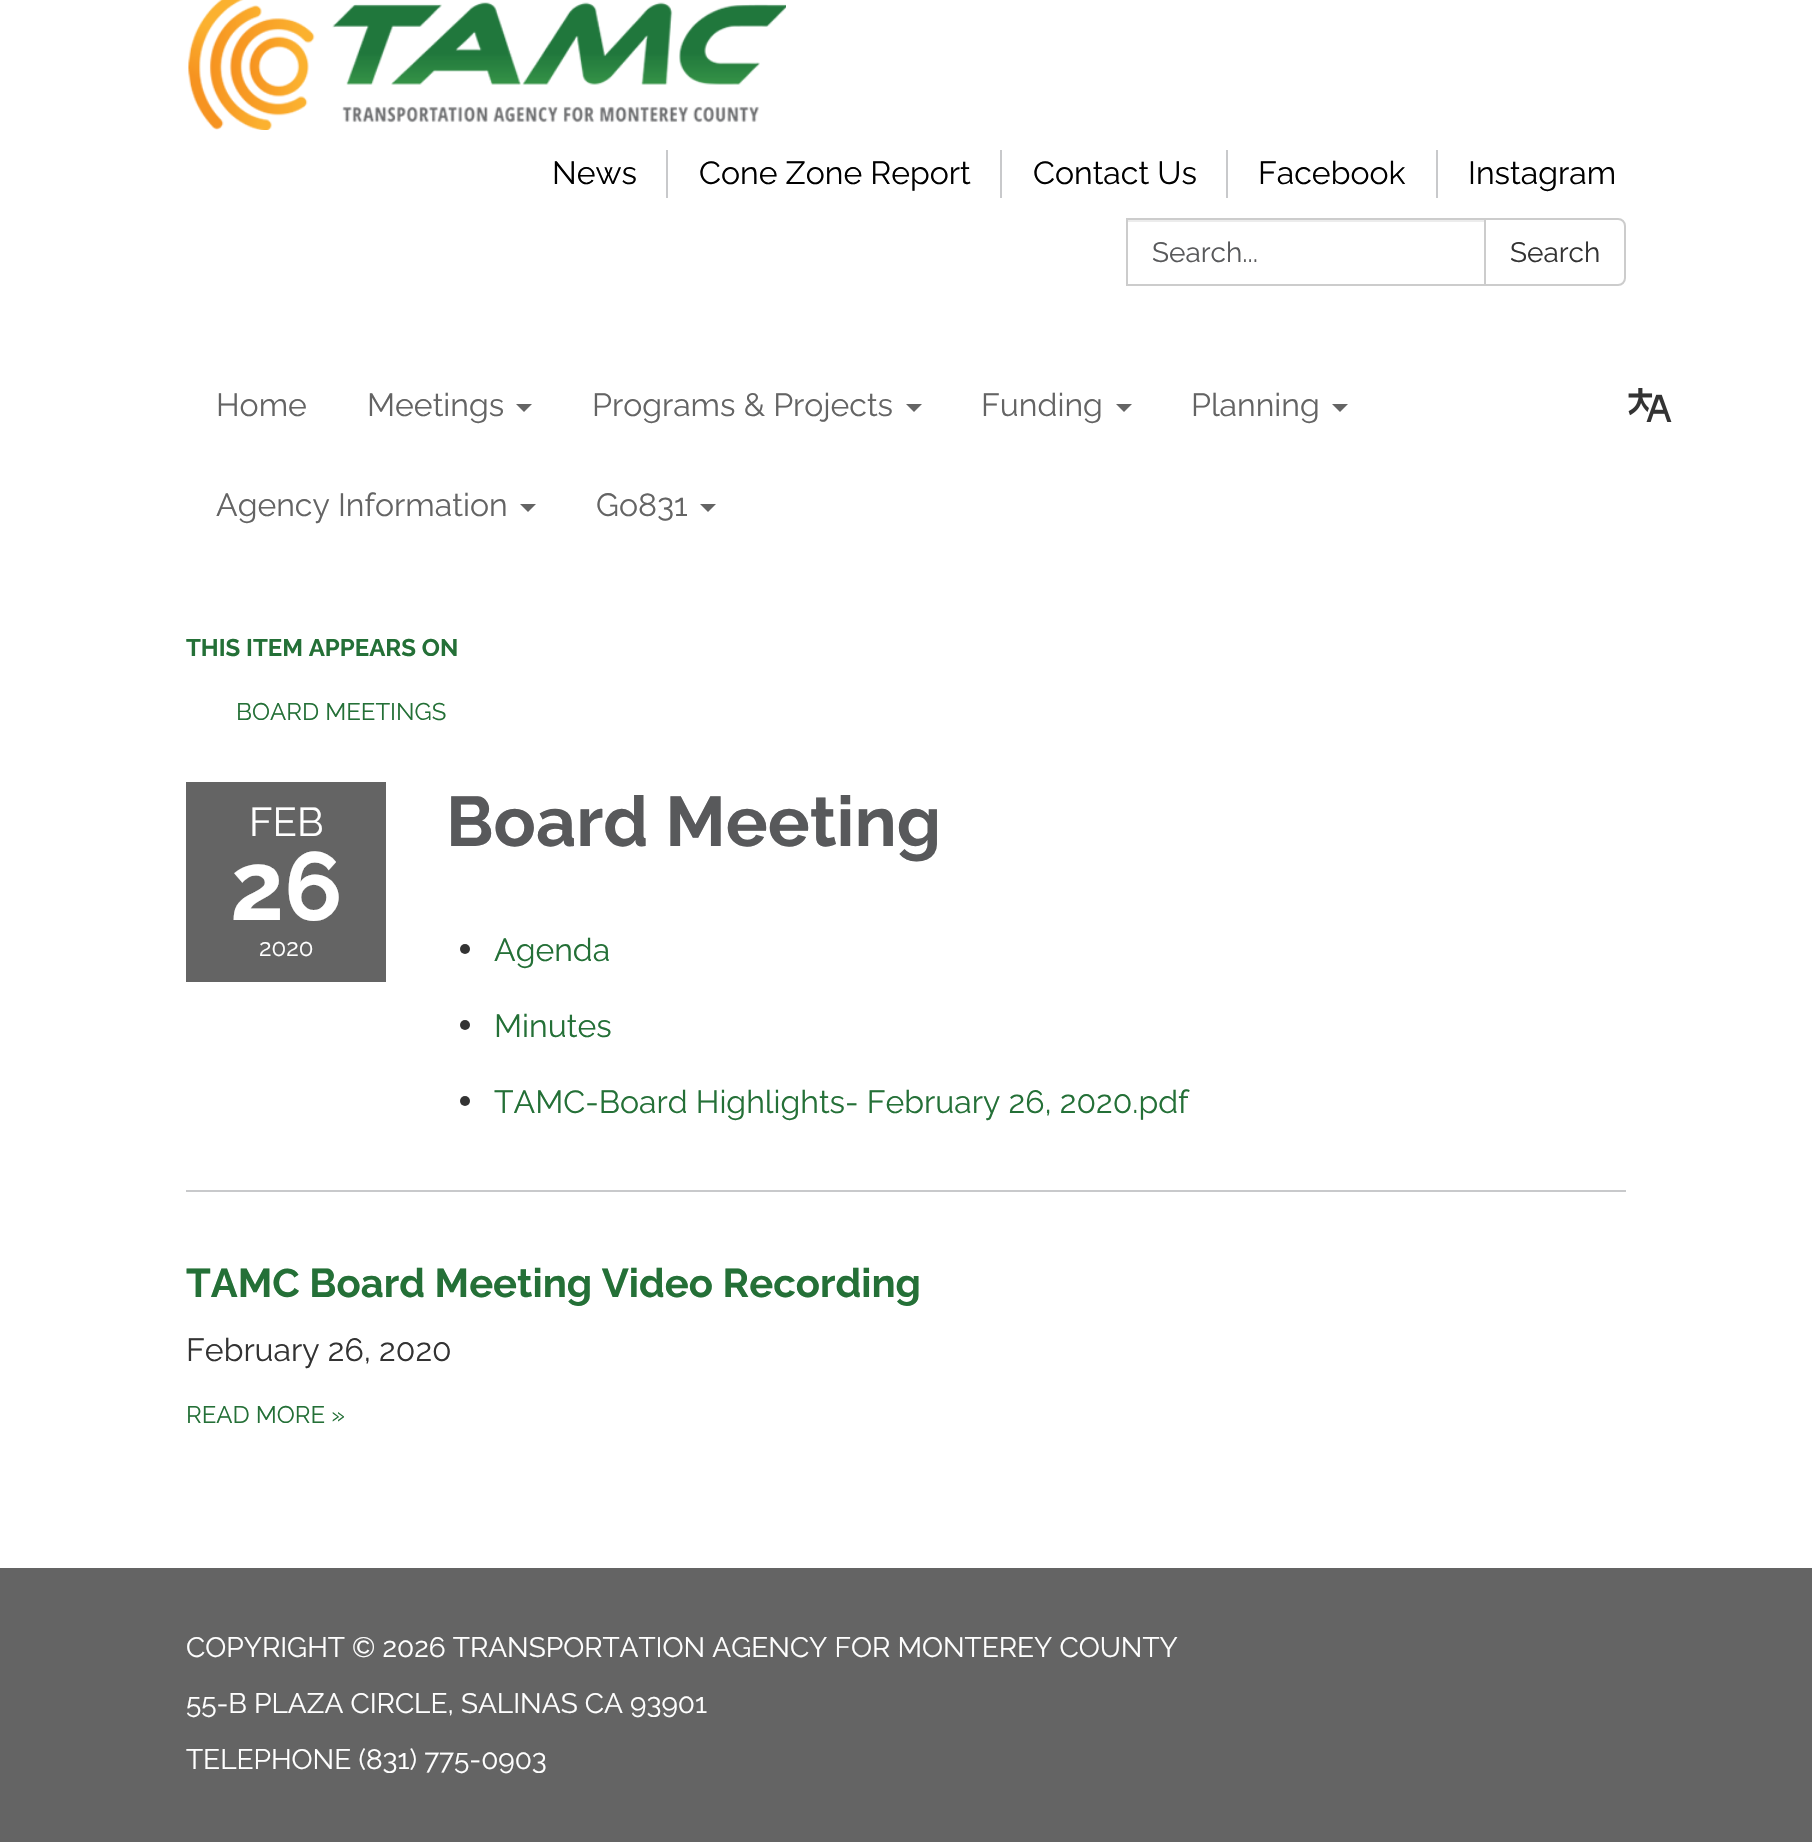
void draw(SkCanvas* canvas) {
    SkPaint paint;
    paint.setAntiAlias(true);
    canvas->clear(0xFF646464);
    paint.setColor(0xFFFFFFFF);
    canvas->drawRect(SkRect::MakeXYWH(0, 0, 1812, 356), paint);
    canvas->drawImageRect(SkImages::DeferredFromEncodedData(SkData::MakeFromFileName("img1.png")), SkRect::MakeXYWH(188, 0, 598, 130), SkSamplingOptions());
    SkFont font1(fontMgr->matchFamilyStyle("Raleway", SkFontStyle::Normal()), 32);
    font1.setSubpixel(true);
    paint.setColor(0xFF000000);
    canvas->drawString("News", 552, 184, font1, paint);
    paint.setColor(0xFFC8C9CB);
    canvas->drawRect(SkRect::MakeXYWH(666, 150, 2, 48), paint);
    paint.setColor(0xFF000000);
    canvas->drawString("Cone Zone Report", 699, 184, font1, paint);
    paint.setColor(0xFFC8C9CB);
    canvas->drawRect(SkRect::MakeXYWH(1000, 150, 2, 48), paint);
    paint.setColor(0xFF000000);
    canvas->drawString("Contact Us", 1033, 184, font1, paint);
    paint.setColor(0xFFC8C9CB);
    canvas->drawRect(SkRect::MakeXYWH(1226, 150, 2, 48), paint);
    paint.setColor(0xFF000000);
    canvas->drawString("Facebook", 1258, 184, font1, paint);
    paint.setColor(0xFFC8C9CB);
    canvas->drawRect(SkRect::MakeXYWH(1436, 150, 2, 48), paint);
    paint.setColor(0xFF000000);
    canvas->drawString("Instagram", 1468, 184, font1, paint);
    paint.setColor(0xFFECECEC);
    canvas->drawRect(SkRect::MakeXYWH(1128, 220, 356, 2), paint);
    paint.setStyle(SkPaint::kStroke_Style);
    paint.setStrokeWidth(2);
    paint.setColor(0xFFCCCCCC);
    canvas->drawRect(SkRect::MakeXYWH(1127, 219, 358, 66), paint);
    SkFont font2(fontMgr->matchFamilyStyle("Raleway", SkFontStyle::Normal()), 28);
    font2.setSubpixel(true);
    paint.setStyle(SkPaint::kFill_Style);
    paint.setColor(0xFF58595B);
    canvas->drawString("Search...", 1152, 262, font2, paint);
    paint.setColor(0xFFFFFFFF);
    canvas->drawPath(SkPathBuilder().moveTo(1485, 219).lineTo(1618, 219).cubicTo(1622, 219, 1625, 222, 1625, 226).lineTo(1625, 278).cubicTo(1625, 282, 1622, 285, 1618, 285).lineTo(1485, 285).close().detach(), paint);
    paint.setStyle(SkPaint::kStroke_Style);
    paint.setColor(0xFFCCCCCC);
    canvas->drawPath(SkPathBuilder().moveTo(1485, 219).lineTo(1618, 219).cubicTo(1622, 219, 1625, 222, 1625, 226).lineTo(1625, 278).cubicTo(1625, 282, 1622, 285, 1618, 285).lineTo(1485, 285).close().detach(), paint);
    paint.setStyle(SkPaint::kFill_Style);
    paint.setColor(0xFF333333);
    canvas->drawString("Search", 1510, 262, font2, paint);
    paint.setColor(0xFFFFFFFF);
    canvas->drawRect(SkRect::MakeXYWH(0, 356, 1812, 1212), paint);
    paint.setColor(0xFF646464);
    canvas->drawString("Home", 216, 416, font1, paint);
    canvas->drawString("Meetings", 367, 416, font1, paint);
    canvas->drawPath(SkPathBuilder().moveTo(516, 404).lineTo(532, 404).lineTo(524, 412).close().detach(), paint);
    canvas->drawString("Programs & Projects", 592, 416, font1, paint);
    canvas->drawPath(SkPathBuilder().moveTo(906, 404).lineTo(922, 404).lineTo(914, 412).close().detach(), paint);
    canvas->drawString("Funding", 981, 416, font1, paint);
    canvas->drawPath(SkPathBuilder().moveTo(1116, 404).lineTo(1132, 404).lineTo(1124, 412).close().detach(), paint);
    canvas->drawString("Planning", 1191, 416, font1, paint);
    canvas->drawPath(SkPathBuilder().moveTo(1332, 404).lineTo(1348, 404).lineTo(1340, 412).close().detach(), paint);
    canvas->drawString("Agency Information", 216, 516, font1, paint);
    canvas->drawPath(SkPathBuilder().moveTo(520, 504).lineTo(536, 504).lineTo(528, 512).close().detach(), paint);
    canvas->drawString("Go831", 596, 516, font1, paint);
    canvas->drawPath(SkPathBuilder().moveTo(700, 504).lineTo(716, 504).lineTo(708, 512).close().detach(), paint);
    canvas->drawImageRect(SkImages::DeferredFromEncodedData(SkData::MakeFromFileName("img2.png")), SkRect::MakeXYWH(1628, 388, 44, 34), SkSamplingOptions());
    SkFont font3(fontMgr->matchFamilyStyle("Raleway", SkFontStyle::Bold()), 24);
    font3.setSubpixel(true);
    paint.setColor(0xFF247037);
    canvas->drawString("THIS ITEM APPEARS ON", 186, 656, font3, paint);
    SkFont font4(fontMgr->matchFamilyStyle("Raleway", SkFontStyle::Normal()), 24);
    font4.setSubpixel(true);
    canvas->drawString("BOARD MEETINGS", 236, 720, font4, paint);
    paint.setColor(0xFF646464);
    canvas->drawRect(SkRect::MakeXYWH(186, 782, 200, 200), paint);
    SkFont font5(fontMgr->matchFamilyStyle("Raleway", SkFontStyle::Normal()), 40);
    font5.setSubpixel(true);
    paint.setColor(0xFFFFFFFF);
    canvas->drawString("FEB", 249, 836, font5, paint);
    SkFont font6(fontMgr->matchFamilyStyle("Raleway", SkFontStyle::Bold()), 96);
    font6.setSubpixel(true);
    canvas->drawString("26", 230, 920, font6, paint);
    canvas->drawString("2020", 259, 956, font4, paint);
    SkFont font7(fontMgr->matchFamilyStyle("Raleway", SkFontStyle::Bold()), 70);
    font7.setSubpixel(true);
    paint.setColor(0xFF58595B);
    canvas->drawString("Board Meeting", 446, 846, font7, paint);
    paint.setColor(0xFF333333);
    canvas->drawCircle(465, 949, 5, paint);
    paint.setColor(0xFF247037);
    canvas->drawString("Agenda", 494, 961, font1, paint);
    paint.setColor(0xFF333333);
    canvas->drawCircle(465, 1025, 5, paint);
    paint.setColor(0xFF247037);
    canvas->drawString("Minutes", 494, 1037, font1, paint);
    paint.setColor(0xFF333333);
    canvas->drawCircle(465, 1101, 5, paint);
    paint.setColor(0xFF247037);
    canvas->drawString("TAMC-Board Highlights- February 26, 2020.pdf", 494, 1113, font1, paint);
    paint.setColor(0xFFC8C9CB);
    canvas->drawRect(SkRect::MakeXYWH(186, 1190, 1440, 2), paint);
    SkFont font8(fontMgr->matchFamilyStyle("Raleway", SkFontStyle::Bold()), 40);
    font8.setSubpixel(true);
    paint.setColor(0xFF247037);
    canvas->drawString("TAMC Board Meeting Video Recording", 186, 1297, font8, paint);
    paint.setColor(0xFF333333);
    canvas->drawString("February 26, 2020", 186, 1361, font1, paint);
    paint.setColor(0xFF247037);
    canvas->drawString("READ MORE »", 186, 1423, font4, paint);
    paint.setColor(0xFFFFFFFF);
    canvas->drawString("COPYRIGHT © 2026 TRANSPORTATION AGENCY FOR MONTEREY COUNTY", 186, 1657, font2, paint);
    canvas->drawString("55-B PLAZA CIRCLE, SALINAS CA 93901", 186, 1713, font2, paint);
    canvas->drawString("TELEPHONE (831) 775-0903", 186, 1769, font2, paint);
}
